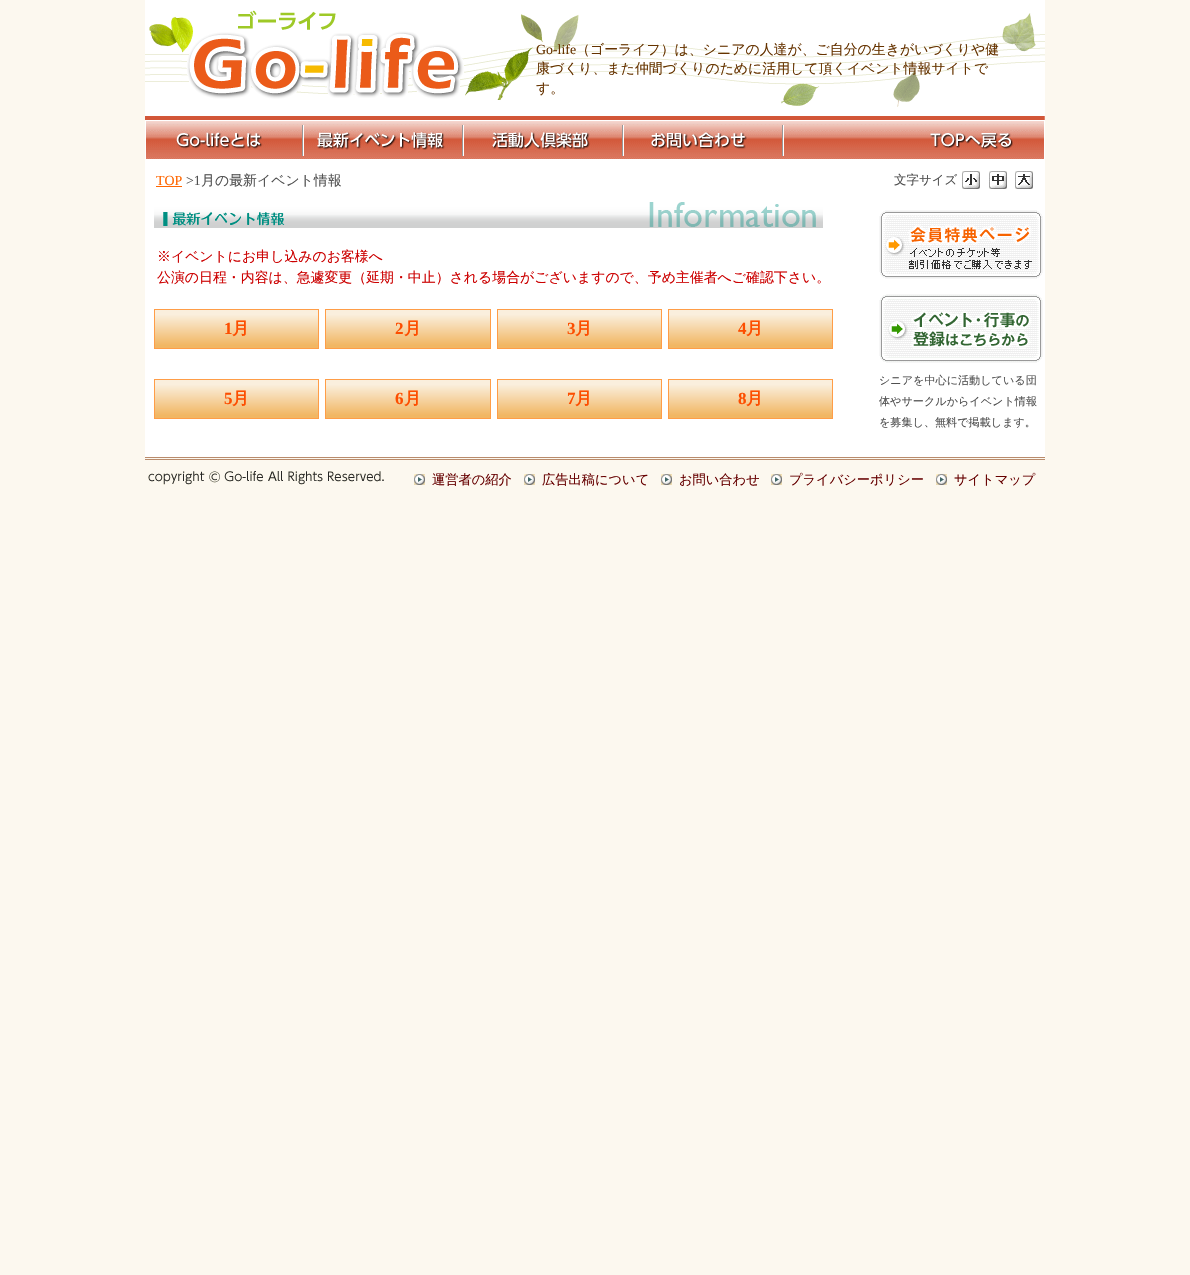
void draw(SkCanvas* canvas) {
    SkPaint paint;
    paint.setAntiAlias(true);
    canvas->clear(0xFFFCF8EF);
    paint.setColor(0xFFFFFFFF);
    canvas->drawRect(SkRect::MakeXYWH(145, 0, 900, 457), paint);
    canvas->drawImageRect(SkImages::DeferredFromEncodedData(SkData::MakeFromFileName("img1.png")), SkRect::MakeXYWH(145, 13, 900, 107), SkSamplingOptions());
    canvas->drawImageRect(SkImages::DeferredFromEncodedData(SkData::MakeFromFileName("img2.png")), SkRect::MakeXYWH(186, 10, 278, 89), SkSamplingOptions());
    SkFont font1(fontMgr->matchFamilyStyle("Liberation Serif", SkFontStyle::Normal()), 13.9f);
    font1.setSubpixel(true);
    paint.setColor(0xFF663300);
    canvas->drawString("Go-life", 536, 54, font1, paint);
    SkFont font2(fontMgr->matchFamilyStyle("WenQuanYi Zen Hei", SkFontStyle(500, SkFontStyle::kNormal_Width, SkFontStyle::kUpright_Slant)), 13.9f);
    font2.setSubpixel(true);
    canvas->drawString("（ゴーライフ）は、シニアの人達が、ご自分の生きがいづくりや健", 576, 54, font2, paint);
    canvas->drawString("康づくり、また仲間づくりのために活用して頂くイベント情報サイトで", 536, 73, font2, paint);
    canvas->drawString("す。", 536, 93, font2, paint);
    canvas->drawImageRect(SkImages::DeferredFromEncodedData(SkData::MakeFromFileName("img3.png")), SkRect::MakeXYWH(146, 121, 898, 38), SkSamplingOptions());
    paint.setColor(0xFFFF6600);
    canvas->drawString("TOP", 156, 185, font1, paint);
    canvas->drawRect(SkRect::MakeXYWH(156, 186, 26, 1), paint);
    paint.setColor(0xFF505050);
    canvas->drawString(">1", 186, 185, font1, paint);
    canvas->drawString("月の最新イベント情報", 201, 185, font2, paint);
    canvas->drawImageRect(SkImages::DeferredFromEncodedData(SkData::MakeFromFileName("img4.png")), SkRect::MakeXYWH(154, 202, 669, 26), SkSamplingOptions());
    paint.setColor(0xFFCC0000);
    canvas->drawString("※イベントにお申し込みのお客様へ", 157, 261, font2, paint);
    canvas->drawString("公演の日程・内容は、急遽変更（延期・中止）される場合がございますので、予め主催者へご確認下さい。", 157, 282, font2, paint);
    paint.setStyle(SkPaint::kStroke_Style);
    paint.setStrokeWidth(1);
    paint.setColor(0xFFFF9D47);
    canvas->drawRect(SkRect::MakeXYWH(154.5f, 309.5f, 164, 39), paint);
    paint.setStyle(SkPaint::kFill_Style);
    {
        const SkColor colors[] = {0xFFFAEFDD, 0xFFF1B663};
        const float stops[] = {0.12f, 0.93f};
        const SkPoint ends[] = {{237, 310}, {237, 348}};
        paint.setShader(SkGradientShader::MakeLinear(ends, colors, stops, 2, SkTileMode::kClamp));
        paint.setAlpha(255);
    }
    canvas->drawRect(SkRect::MakeXYWH(155, 310, 163, 38), paint);
    SkFont font3(fontMgr->matchFamilyStyle("Liberation Serif", SkFontStyle::Bold()), 17);
    font3.setSubpixel(true);
    paint.setShader(nullptr);
    paint.setColor(0xFFFD4E00);
    canvas->drawString("1", 224, 334, font3, paint);
    SkFont font4(fontMgr->matchFamilyStyle("WenQuanYi Zen Hei", SkFontStyle::Bold()), 17);
    font4.setSubpixel(true);
    canvas->drawString("月", 232, 334, font4, paint);
    paint.setStyle(SkPaint::kStroke_Style);
    paint.setColor(0xFFFF9D47);
    canvas->drawRect(SkRect::MakeXYWH(325.5f, 309.5f, 165, 39), paint);
    paint.setStyle(SkPaint::kFill_Style);
    {
        const SkColor colors[] = {0xFFFAEFDD, 0xFFF1B663};
        const float stops[] = {0.12f, 0.93f};
        const SkPoint ends[] = {{408, 310}, {408, 348}};
        paint.setShader(SkGradientShader::MakeLinear(ends, colors, stops, 2, SkTileMode::kClamp));
        paint.setAlpha(255);
    }
    canvas->drawRect(SkRect::MakeXYWH(326, 310, 164, 38), paint);
    paint.setShader(nullptr);
    paint.setColor(0xFFFD4E00);
    canvas->drawString("2", 395, 334, font3, paint);
    canvas->drawString("月", 404, 334, font4, paint);
    paint.setStyle(SkPaint::kStroke_Style);
    paint.setColor(0xFFFF9D47);
    canvas->drawRect(SkRect::MakeXYWH(497.5f, 309.5f, 164, 39), paint);
    paint.setStyle(SkPaint::kFill_Style);
    {
        const SkColor colors[] = {0xFFFAEFDD, 0xFFF1B663};
        const float stops[] = {0.12f, 0.93f};
        const SkPoint ends[] = {{580, 310}, {580, 348}};
        paint.setShader(SkGradientShader::MakeLinear(ends, colors, stops, 2, SkTileMode::kClamp));
        paint.setAlpha(255);
    }
    canvas->drawRect(SkRect::MakeXYWH(498, 310, 163, 38), paint);
    paint.setShader(nullptr);
    paint.setColor(0xFFFD4E00);
    canvas->drawString("3", 567, 334, font3, paint);
    canvas->drawString("月", 575, 334, font4, paint);
    paint.setStyle(SkPaint::kStroke_Style);
    paint.setColor(0xFFFF9D47);
    canvas->drawRect(SkRect::MakeXYWH(668.5f, 309.5f, 164, 39), paint);
    paint.setStyle(SkPaint::kFill_Style);
    {
        const SkColor colors[] = {0xFFFAEFDD, 0xFFF1B663};
        const float stops[] = {0.12f, 0.93f};
        const SkPoint ends[] = {{751, 310}, {751, 348}};
        paint.setShader(SkGradientShader::MakeLinear(ends, colors, stops, 2, SkTileMode::kClamp));
        paint.setAlpha(255);
    }
    canvas->drawRect(SkRect::MakeXYWH(669, 310, 163, 38), paint);
    paint.setShader(nullptr);
    paint.setColor(0xFFFD4E00);
    canvas->drawString("4", 738, 334, font3, paint);
    canvas->drawString("月", 746, 334, font4, paint);
    paint.setStyle(SkPaint::kStroke_Style);
    paint.setColor(0xFFFF9D47);
    canvas->drawRect(SkRect::MakeXYWH(154.5f, 379.5f, 164, 39), paint);
    paint.setStyle(SkPaint::kFill_Style);
    {
        const SkColor colors[] = {0xFFFAEFDD, 0xFFF1B663};
        const float stops[] = {0.12f, 0.93f};
        const SkPoint ends[] = {{237, 380}, {237, 418}};
        paint.setShader(SkGradientShader::MakeLinear(ends, colors, stops, 2, SkTileMode::kClamp));
        paint.setAlpha(255);
    }
    canvas->drawRect(SkRect::MakeXYWH(155, 380, 163, 38), paint);
    paint.setShader(nullptr);
    paint.setColor(0xFFFD4E00);
    canvas->drawString("5", 224, 404, font3, paint);
    canvas->drawString("月", 232, 404, font4, paint);
    paint.setStyle(SkPaint::kStroke_Style);
    paint.setColor(0xFFFF9D47);
    canvas->drawRect(SkRect::MakeXYWH(325.5f, 379.5f, 165, 39), paint);
    paint.setStyle(SkPaint::kFill_Style);
    {
        const SkColor colors[] = {0xFFFAEFDD, 0xFFF1B663};
        const float stops[] = {0.12f, 0.93f};
        const SkPoint ends[] = {{408, 380}, {408, 418}};
        paint.setShader(SkGradientShader::MakeLinear(ends, colors, stops, 2, SkTileMode::kClamp));
        paint.setAlpha(255);
    }
    canvas->drawRect(SkRect::MakeXYWH(326, 380, 164, 38), paint);
    paint.setShader(nullptr);
    paint.setColor(0xFFFD4E00);
    canvas->drawString("6", 395, 404, font3, paint);
    canvas->drawString("月", 404, 404, font4, paint);
    paint.setStyle(SkPaint::kStroke_Style);
    paint.setColor(0xFFFF9D47);
    canvas->drawRect(SkRect::MakeXYWH(497.5f, 379.5f, 164, 39), paint);
    paint.setStyle(SkPaint::kFill_Style);
    {
        const SkColor colors[] = {0xFFFAEFDD, 0xFFF1B663};
        const float stops[] = {0.12f, 0.93f};
        const SkPoint ends[] = {{580, 380}, {580, 418}};
        paint.setShader(SkGradientShader::MakeLinear(ends, colors, stops, 2, SkTileMode::kClamp));
        paint.setAlpha(255);
    }
    canvas->drawRect(SkRect::MakeXYWH(498, 380, 163, 38), paint);
    paint.setShader(nullptr);
    paint.setColor(0xFFFD4E00);
    canvas->drawString("7", 567, 404, font3, paint);
    canvas->drawString("月", 575, 404, font4, paint);
    paint.setStyle(SkPaint::kStroke_Style);
    paint.setColor(0xFFFF9D47);
    canvas->drawRect(SkRect::MakeXYWH(668.5f, 379.5f, 164, 39), paint);
    paint.setStyle(SkPaint::kFill_Style);
    {
        const SkColor colors[] = {0xFFFAEFDD, 0xFFF1B663};
        const float stops[] = {0.12f, 0.93f};
        const SkPoint ends[] = {{751, 380}, {751, 418}};
        paint.setShader(SkGradientShader::MakeLinear(ends, colors, stops, 2, SkTileMode::kClamp));
        paint.setAlpha(255);
    }
    canvas->drawRect(SkRect::MakeXYWH(669, 380, 163, 38), paint);
    paint.setShader(nullptr);
    paint.setColor(0xFFFD4E00);
    canvas->drawString("8", 738, 404, font3, paint);
    canvas->drawString("月", 746, 404, font4, paint);
    SkFont font5(fontMgr->matchFamilyStyle("WenQuanYi Zen Hei", SkFontStyle(500, SkFontStyle::kNormal_Width, SkFontStyle::kUpright_Slant)), 12.5f);
    font5.setSubpixel(true);
    paint.setColor(0xFF505050);
    canvas->drawString("文字サイズ", 894, 184, font5, paint);
    canvas->drawImageRect(SkImages::DeferredFromEncodedData(SkData::MakeFromFileName("img5.png")), SkRect::MakeXYWH(962, 171, 18, 18), SkSamplingOptions());
    canvas->drawImageRect(SkImages::DeferredFromEncodedData(SkData::MakeFromFileName("img6.png")), SkRect::MakeXYWH(989, 171, 18, 18), SkSamplingOptions());
    canvas->drawImageRect(SkImages::DeferredFromEncodedData(SkData::MakeFromFileName("img7.png")), SkRect::MakeXYWH(1015, 171, 18, 18), SkSamplingOptions());
    canvas->drawImageRect(SkImages::DeferredFromEncodedData(SkData::MakeFromFileName("img8.png")), SkRect::MakeXYWH(879, 210, 164, 69), SkSamplingOptions());
    canvas->drawImageRect(SkImages::DeferredFromEncodedData(SkData::MakeFromFileName("img9.png")), SkRect::MakeXYWH(879, 294, 164, 69), SkSamplingOptions());
    SkFont font6(fontMgr->matchFamilyStyle("WenQuanYi Zen Hei", SkFontStyle(500, SkFontStyle::kNormal_Width, SkFontStyle::kUpright_Slant)), 11.1f);
    font6.setSubpixel(true);
    canvas->drawString("シニアを中心に活動している団", 879, 384, font6, paint);
    canvas->drawString("体やサークルからイベント情報", 879, 405, font6, paint);
    canvas->drawString("を募集し、無料で掲載します。", 879, 426, font6, paint);
    paint.setColor(0xFFB98B6C);
    canvas->drawRect(SkRect::MakeXYWH(145, 457, 900, 1), paint);
    canvas->drawRect(SkRect::MakeXYWH(145, 459, 900, 1), paint);
    canvas->drawImageRect(SkImages::DeferredFromEncodedData(SkData::MakeFromFileName("img10.png")), SkRect::MakeXYWH(148, 471, 236, 14), SkSamplingOptions());
    canvas->drawImageRect(SkImages::DeferredFromEncodedData(SkData::MakeFromFileName("img11.png")), SkRect::MakeXYWH(414, 474, 11, 11), SkSamplingOptions());
    SkFont font7(fontMgr->matchFamilyStyle("WenQuanYi Zen Hei", SkFontStyle(500, SkFontStyle::kNormal_Width, SkFontStyle::kUpright_Slant)), 13.25f);
    font7.setSubpixel(true);
    paint.setColor(0xFF660000);
    canvas->drawString("運営者の紹介", 432, 484, font7, paint);
    canvas->drawImageRect(SkImages::DeferredFromEncodedData(SkData::MakeFromFileName("img11.png")), SkRect::MakeXYWH(524, 474, 11, 11), SkSamplingOptions());
    canvas->drawString("広告出稿について", 542, 484, font7, paint);
    canvas->drawImageRect(SkImages::DeferredFromEncodedData(SkData::MakeFromFileName("img11.png")), SkRect::MakeXYWH(661, 474, 11, 11), SkSamplingOptions());
    canvas->drawString("お問い合わせ", 679, 484, font7, paint);
    canvas->drawImageRect(SkImages::DeferredFromEncodedData(SkData::MakeFromFileName("img11.png")), SkRect::MakeXYWH(771, 474, 11, 11), SkSamplingOptions());
    canvas->drawString("プライバシーポリシー", 789, 484, font7, paint);
    canvas->drawImageRect(SkImages::DeferredFromEncodedData(SkData::MakeFromFileName("img11.png")), SkRect::MakeXYWH(936, 474, 11, 11), SkSamplingOptions());
    canvas->drawString("サイトマップ", 954, 484, font7, paint);
}
